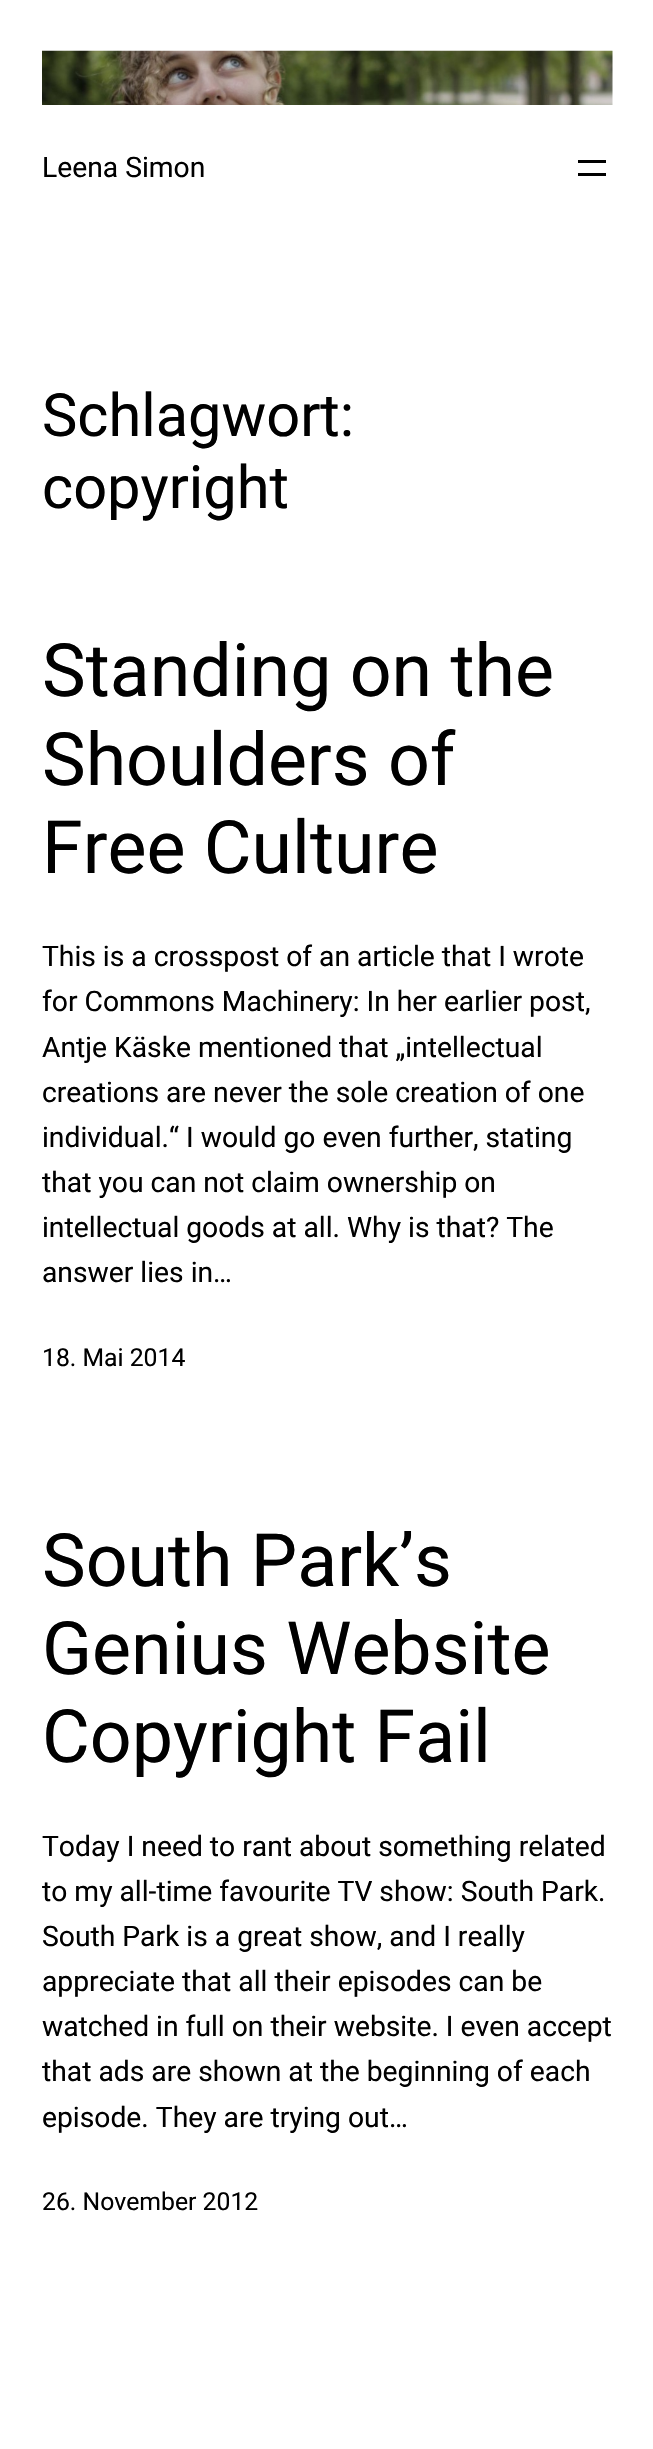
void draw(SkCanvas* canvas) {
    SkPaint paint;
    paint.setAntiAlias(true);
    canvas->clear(0xFFFFFFFF);
    canvas->drawImageRect(SkImages::DeferredFromEncodedData(SkData::MakeFromFileName("img1.png")), SkRect::MakeXYWH(42, 50, 571, 55), SkSamplingOptions());
    SkFont font1(fontMgr->matchFamilyStyle("Roboto", SkFontStyle::Normal()), 28.25f);
    font1.setSubpixel(true);
    paint.setColor(0xFF000000);
    canvas->drawString("Leena Simon", 42, 177, font1, paint);
    canvas->drawRect(SkRect::MakeXYWH(578, 160, 28, 3), paint);
    canvas->drawRect(SkRect::MakeXYWH(578, 173, 28, 3), paint);
    SkFont font2(fontMgr->matchFamilyStyle("Roboto", SkFontStyle::Normal()), 59.5f);
    font2.setSubpixel(true);
    canvas->drawString("Schlagwort:", 42, 436, font2, paint);
    canvas->drawString("copyright", 42, 508, font2, paint);
    SkFont font3(fontMgr->matchFamilyStyle("Roboto", SkFontStyle::Normal()), 73.5f);
    font3.setSubpixel(true);
    canvas->drawString("Standing on the", 42, 696, font3, paint);
    canvas->drawString("Shoulders of", 42, 785, font3, paint);
    canvas->drawString("Free Culture", 42, 873, font3, paint);
    canvas->drawString("This is a crosspost of an article that I wrote", 42, 966, font1, paint);
    canvas->drawString("for Commons Machinery: In her earlier post,", 42, 1011, font1, paint);
    canvas->drawString("Antje Käske mentioned that „intellectual", 42, 1057, font1, paint);
    canvas->drawString("creations are never the sole creation of one", 42, 1102, font1, paint);
    canvas->drawString("individual.“ I would go even further, stating", 42, 1147, font1, paint);
    canvas->drawString("that you can not claim ownership on", 42, 1192, font1, paint);
    canvas->drawString("intellectual goods at all. Why is that? The", 42, 1237, font1, paint);
    canvas->drawString("answer lies in…", 42, 1282, font1, paint);
    SkFont font4(fontMgr->matchFamilyStyle("Roboto", SkFontStyle::Normal()), 24.75f);
    font4.setSubpixel(true);
    canvas->drawString("18. Mai 2014", 42, 1366, font4, paint);
    canvas->drawString("South Park’s", 42, 1586, font3, paint);
    canvas->drawString("Genius Website", 42, 1674, font3, paint);
    canvas->drawString("Copyright Fail", 42, 1762, font3, paint);
    canvas->drawString("Today I need to rant about something related", 42, 1856, font1, paint);
    canvas->drawString("to my all-time favourite TV show: South Park.", 42, 1901, font1, paint);
    canvas->drawString("South Park is a great show, and I really", 42, 1946, font1, paint);
    canvas->drawString("appreciate that all their episodes can be", 42, 1991, font1, paint);
    canvas->drawString("watched in full on their website. I even accept", 42, 2036, font1, paint);
    canvas->drawString("that ads are shown at the beginning of each", 42, 2081, font1, paint);
    canvas->drawString("episode. They are trying out…", 42, 2127, font1, paint);
    canvas->drawString("26. November 2012", 42, 2210, font4, paint);
}
